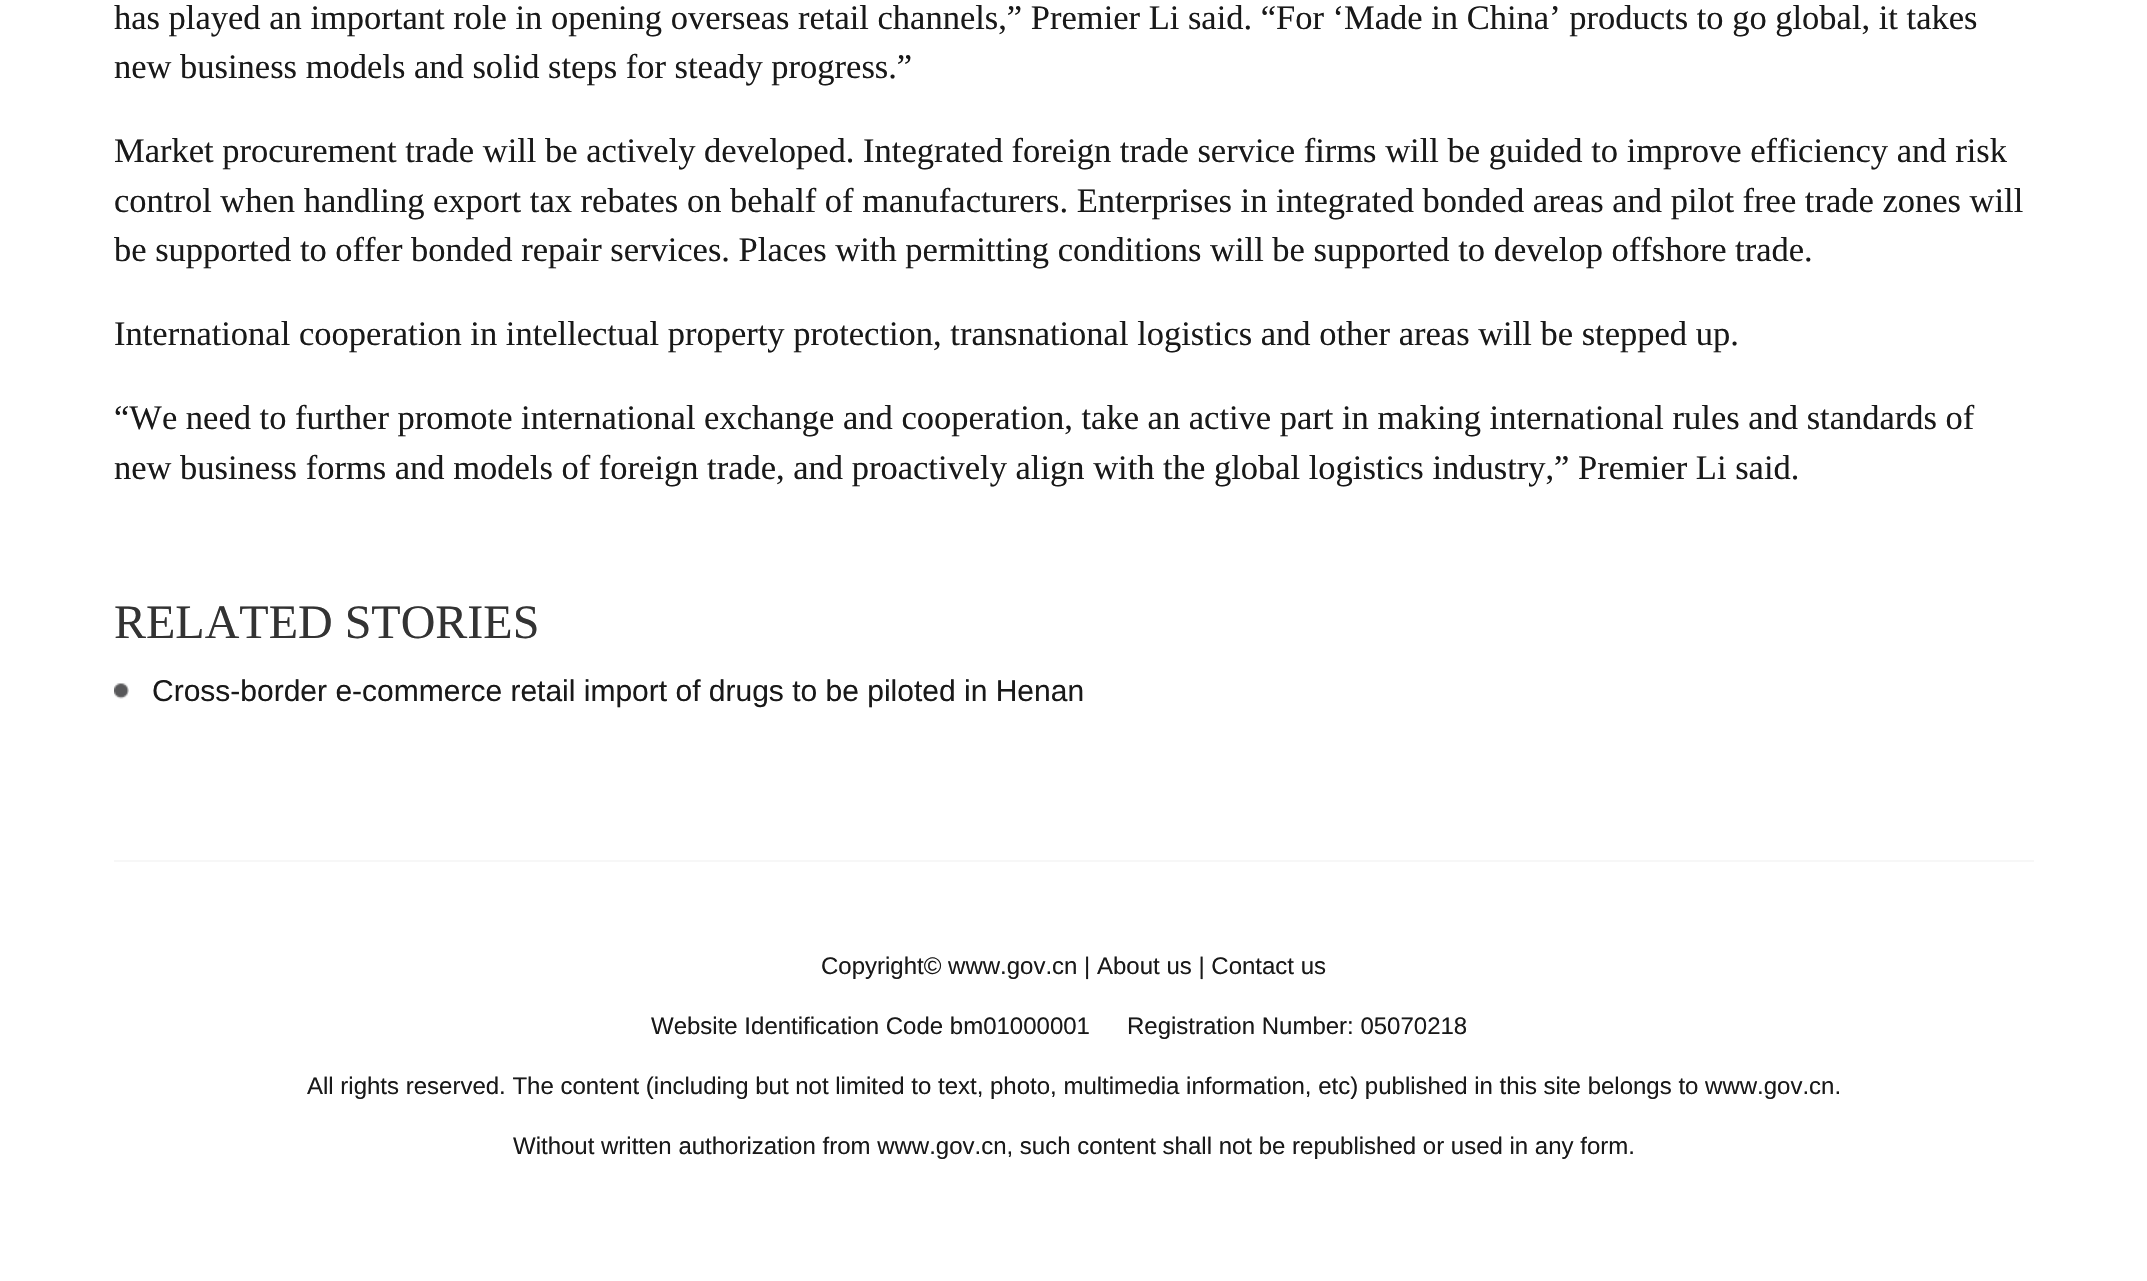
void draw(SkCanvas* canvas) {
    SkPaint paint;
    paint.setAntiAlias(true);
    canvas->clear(0xFFFFFFFF);
    SkFont font1(fontMgr->matchFamilyStyle("Liberation Serif", SkFontStyle::Normal()), 34.5f);
    font1.setSubpixel(true);
    paint.setColor(0xFF191919);
    canvas->drawString("has played an important role in opening overseas retail channels,” Premier Li said. “For ‘Made in China’ products to go global, it takes", 114, 29, font1, paint);
    canvas->drawString("new business models and solid steps for steady progress.”", 114, 78, font1, paint);
    canvas->drawString("Market procurement trade will be actively developed. Integrated foreign trade service firms will be guided to improve efficiency and risk", 114, 162, font1, paint);
    canvas->drawString("control when handling export tax rebates on behalf of manufacturers. Enterprises in integrated bonded areas and pilot free trade zones will", 114, 212, font1, paint);
    canvas->drawString("be supported to offer bonded repair services. Places with permitting conditions will be supported to develop offshore trade.", 114, 261, font1, paint);
    canvas->drawString("International cooperation in intellectual property protection, transnational logistics and other areas will be stepped up.", 114, 345, font1, paint);
    canvas->drawString("“We need to further promote international exchange and cooperation, take an active part in making international rules and standards of", 114, 429, font1, paint);
    canvas->drawString("new business forms and models of foreign trade, and proactively align with the global logistics industry,” Premier Li said.", 114, 479, font1, paint);
    SkFont font2(fontMgr->matchFamilyStyle("Liberation Serif", SkFontStyle::Normal()), 48);
    font2.setSubpixel(true);
    paint.setColor(0xFF333333);
    canvas->drawString("RELATED STORIES", 114, 638, font2, paint);
    canvas->drawImageRect(SkImages::DeferredFromEncodedData(SkData::MakeFromFileName("img1.png")), SkRect::MakeXYWH(114, 683, 15, 16), SkSamplingOptions());
    SkFont font3(fontMgr->matchFamilyStyle("Liberation Sans", SkFontStyle::Normal()), 30);
    font3.setSubpixel(true);
    paint.setColor(0xFF191919);
    canvas->drawString("Cross-border e-commerce retail import of drugs to be piloted in Henan", 152, 701, font3, paint);
    paint.setColor(0xFFF7F7F7);
    canvas->drawRect(SkRect::MakeXYWH(114, 860, 1920, 2), paint);
    SkFont font4(fontMgr->matchFamilyStyle("Liberation Sans", SkFontStyle::Normal()), 24);
    font4.setSubpixel(true);
    paint.setColor(0xFF191919);
    canvas->drawString("Copyright© www.gov.cn | About us | Contact us", 821, 974, font4, paint);
    canvas->drawString("Website Identification Code bm01000001", 651, 1034, font4, paint);
    canvas->drawString("Registration Number: 05070218", 1127, 1034, font4, paint);
    canvas->drawString("All rights reserved. The content (including but not limited to text, photo, multimedia information, etc) published in this site belongs to www.gov.cn.", 307, 1094, font4, paint);
    canvas->drawString("Without written authorization from www.gov.cn, such content shall not be republished or used in any form.", 513, 1154, font4, paint);
}
